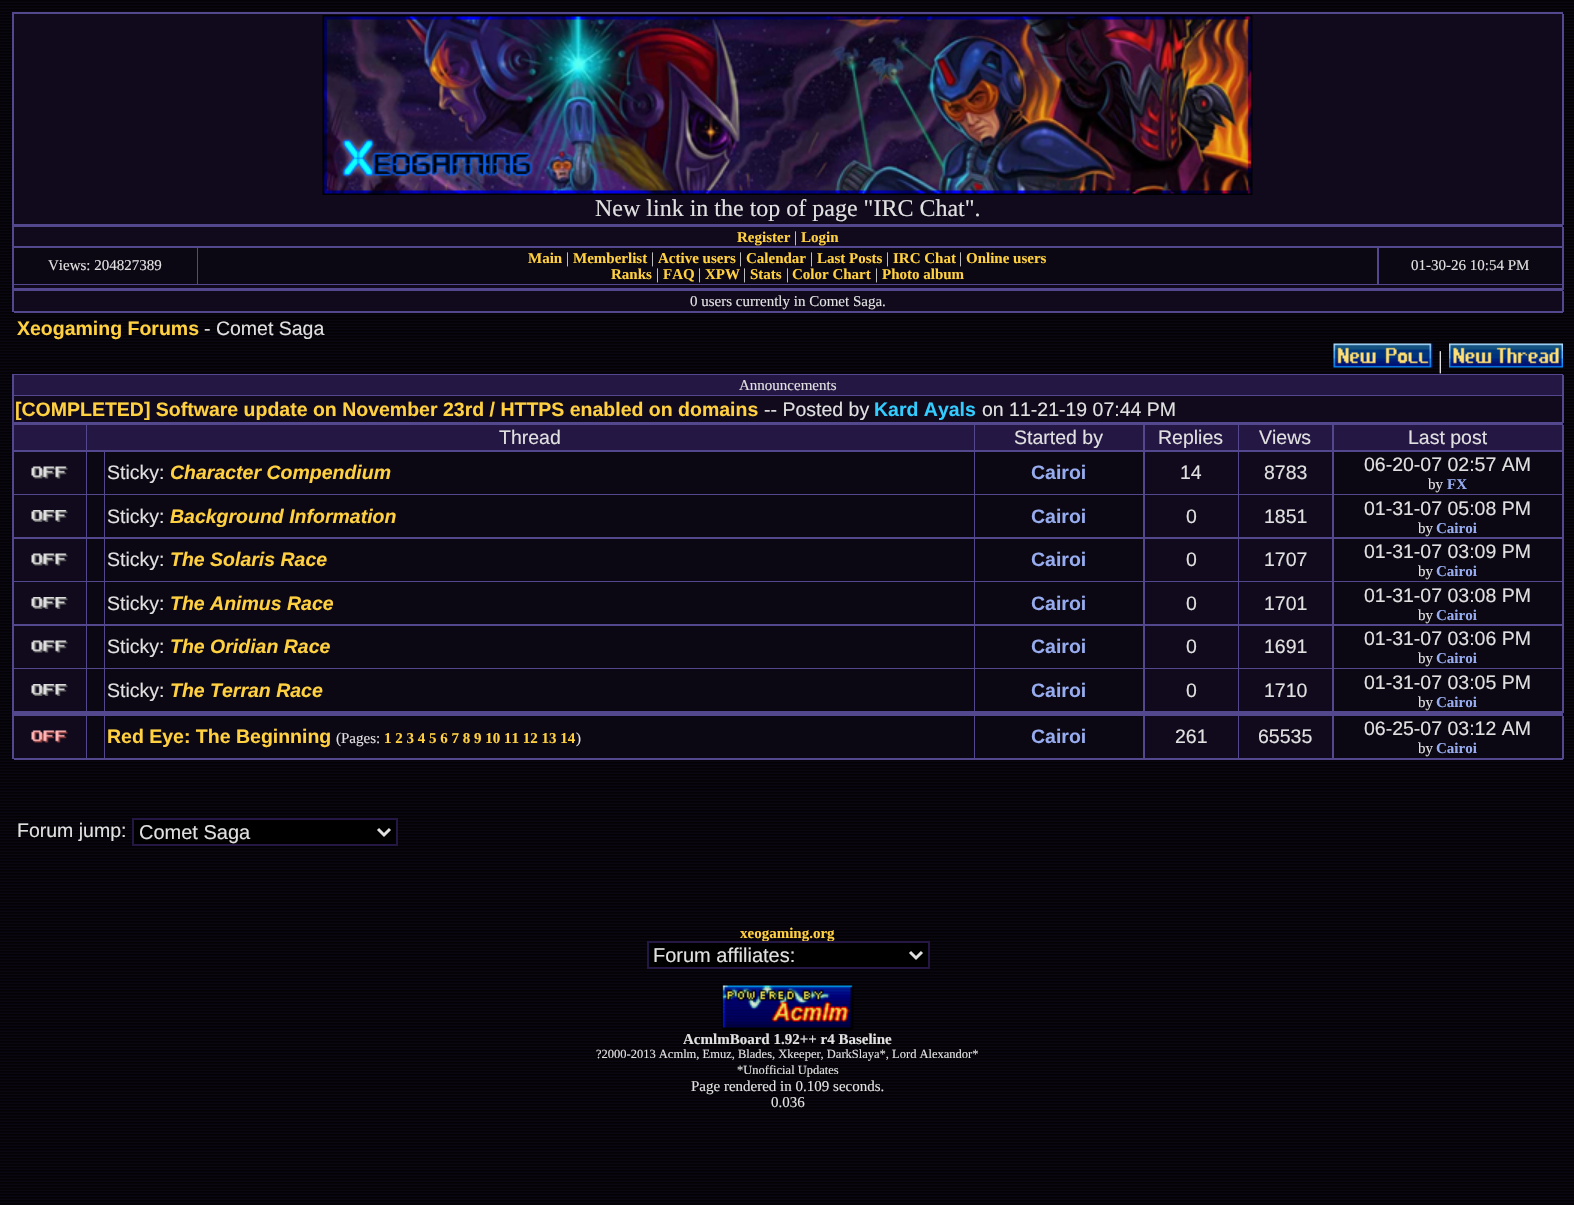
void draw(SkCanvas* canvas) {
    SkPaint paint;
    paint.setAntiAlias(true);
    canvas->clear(0xFF0B0713);
    canvas->drawImageRect(SkImages::DeferredFromEncodedData(SkData::MakeFromFileName("img1.png")), SkRect::MakeXYWH(0, 0, 1574, 1205), SkSamplingOptions());
    paint.setColor(0xFF53488D);
    canvas->drawRect(SkRect::MakeXYWH(12, 12, 1551, 2), paint);
    canvas->drawRect(SkRect::MakeXYWH(12, 12, 2, 213), paint);
    paint.setColor(0xFF110A1C);
    canvas->drawRect(SkRect::MakeXYWH(14, 14, 1548, 210), paint);
    paint.setColor(0xFF53488D);
    canvas->drawRect(SkRect::MakeXYWH(1562, 14, 2, 211), paint);
    canvas->drawRect(SkRect::MakeXYWH(14, 224, 1549, 1), paint);
    canvas->drawImageRect(SkImages::DeferredFromEncodedData(SkData::MakeFromFileName("img2.png")), SkRect::MakeXYWH(322, 15, 931, 180), SkSamplingOptions());
    SkFont font1(fontMgr->matchFamilyStyle("Liberation Serif", SkFontStyle::Normal()), 24);
    font1.setSubpixel(true);
    paint.setColor(0xFFE0E0E0);
    canvas->drawString("New link in the top of page \"IRC Chat\".", 595, 216, font1, paint);
    paint.setColor(0xFF53488D);
    canvas->drawRect(SkRect::MakeXYWH(12, 225, 1551, 2), paint);
    canvas->drawRect(SkRect::MakeXYWH(12, 225, 2, 65), paint);
    paint.setColor(0xFF110A1C);
    canvas->drawRect(SkRect::MakeXYWH(14, 227, 1548, 19), paint);
    paint.setColor(0xFF53488D);
    canvas->drawRect(SkRect::MakeXYWH(1562, 227, 2, 58), paint);
    canvas->drawRect(SkRect::MakeXYWH(14, 246, 1549, 2), paint);
    SkFont font2(fontMgr->matchFamilyStyle("Liberation Serif", SkFontStyle::Bold()), 15);
    font2.setSubpixel(true);
    paint.setColor(0xFFFFD040);
    canvas->drawString("Register", 737, 242, font2, paint);
    SkFont font3(fontMgr->matchFamilyStyle("Liberation Serif", SkFontStyle::Normal()), 15);
    font3.setSubpixel(true);
    paint.setColor(0xFFE0E0E0);
    canvas->drawString("|", 794, 242, font3, paint);
    paint.setColor(0xFFFFD040);
    canvas->drawString("Login", 801, 242, font2, paint);
    paint.setColor(0xFF0B0713);
    canvas->drawRect(SkRect::MakeXYWH(14, 249, 183, 35), paint);
    paint.setColor(0xFF53488D);
    canvas->drawRect(SkRect::MakeXYWH(197, 248, 1, 37), paint);
    canvas->drawRect(SkRect::MakeXYWH(14, 284, 184, 1), paint);
    paint.setColor(0xFFE0E0E0);
    canvas->drawString("Views: 204827389", 48, 270, font3, paint);
    paint.setColor(0xFF0B0713);
    canvas->drawRect(SkRect::MakeXYWH(198, 249, 1179, 35), paint);
    paint.setColor(0xFF53488D);
    canvas->drawRect(SkRect::MakeXYWH(1377, 248, 2, 37), paint);
    canvas->drawRect(SkRect::MakeXYWH(198, 284, 1365, 1), paint);
    paint.setColor(0xFFFFD040);
    canvas->drawString("Main", 528, 263, font2, paint);
    paint.setColor(0xFFE0E0E0);
    canvas->drawString("|", 566, 263, font3, paint);
    paint.setColor(0xFFFFD040);
    canvas->drawString("Memberlist", 573, 263, font2, paint);
    paint.setColor(0xFFE0E0E0);
    canvas->drawString("|", 651, 263, font3, paint);
    paint.setColor(0xFFFFD040);
    canvas->drawString("Active users", 658, 263, font2, paint);
    paint.setColor(0xFFE0E0E0);
    canvas->drawString("|", 739, 263, font3, paint);
    paint.setColor(0xFFFFD040);
    canvas->drawString("Calendar", 746, 263, font2, paint);
    paint.setColor(0xFFE0E0E0);
    canvas->drawString("|", 810, 263, font3, paint);
    paint.setColor(0xFFFFD040);
    canvas->drawString("Last Posts", 817, 263, font2, paint);
    paint.setColor(0xFFE0E0E0);
    canvas->drawString("|", 886, 263, font3, paint);
    paint.setColor(0xFFFFD040);
    canvas->drawString("IRC Chat", 893, 263, font2, paint);
    paint.setColor(0xFFE0E0E0);
    canvas->drawString("|", 959, 263, font3, paint);
    paint.setColor(0xFFFFD040);
    canvas->drawString("Online users", 966, 263, font2, paint);
    canvas->drawString("Ranks", 611, 279, font2, paint);
    paint.setColor(0xFFE0E0E0);
    canvas->drawString("|", 656, 279, font3, paint);
    paint.setColor(0xFFFFD040);
    canvas->drawString("FAQ", 663, 279, font2, paint);
    paint.setColor(0xFFE0E0E0);
    canvas->drawString("|", 698, 279, font3, paint);
    paint.setColor(0xFFFFD040);
    canvas->drawString("XPW", 705, 279, font2, paint);
    paint.setColor(0xFFE0E0E0);
    canvas->drawString("|", 743, 279, font3, paint);
    paint.setColor(0xFFFFD040);
    canvas->drawString("Stats", 750, 279, font2, paint);
    paint.setColor(0xFFE0E0E0);
    canvas->drawString("|", 786, 279, font3, paint);
    paint.setColor(0xFFFFD040);
    canvas->drawString("Color Chart", 792, 279, font2, paint);
    paint.setColor(0xFFE0E0E0);
    canvas->drawString("|", 875, 279, font3, paint);
    paint.setColor(0xFFFFD040);
    canvas->drawString("Photo album", 882, 279, font2, paint);
    paint.setColor(0xFF0B0713);
    canvas->drawRect(SkRect::MakeXYWH(1379, 249, 183, 35), paint);
    paint.setColor(0xFFE0E0E0);
    canvas->drawString("01-30-26 10:54 PM", 1411, 270, font3, paint);
    paint.setColor(0xFF110A1C);
    canvas->drawRect(SkRect::MakeXYWH(14, 285, 1549, 3), paint);
    paint.setColor(0xFF53488D);
    canvas->drawRect(SkRect::MakeXYWH(1562, 285, 2, 5), paint);
    canvas->drawRect(SkRect::MakeXYWH(14, 288, 1549, 2), paint);
    canvas->drawRect(SkRect::MakeXYWH(12, 290, 1551, 1), paint);
    canvas->drawRect(SkRect::MakeXYWH(12, 290, 2, 22), paint);
    paint.setColor(0xFF110A1C);
    canvas->drawRect(SkRect::MakeXYWH(14, 291, 1548, 20), paint);
    paint.setColor(0xFF53488D);
    canvas->drawRect(SkRect::MakeXYWH(1562, 291, 2, 21), paint);
    canvas->drawRect(SkRect::MakeXYWH(14, 311, 1549, 2), paint);
    paint.setColor(0xFFE0E0E0);
    canvas->drawString("0 users currently in Comet Saga.", 690, 306, font3, paint);
    SkFont font4(fontMgr->matchFamilyStyle("Liberation Sans", SkFontStyle::Bold()), 19.5f);
    font4.setSubpixel(true);
    paint.setColor(0xFFFFD040);
    canvas->drawString("Xeogaming Forums", 17, 335, font4, paint);
    SkFont font5(fontMgr->matchFamilyStyle("Liberation Sans", SkFontStyle::Normal()), 19.5f);
    font5.setSubpixel(true);
    paint.setColor(0xFFE0E0E0);
    canvas->drawString("- Comet Saga", 204, 335, font5, paint);
    canvas->drawImageRect(SkImages::DeferredFromEncodedData(SkData::MakeFromFileName("img3.png")), SkRect::MakeXYWH(1333, 343, 100, 25), SkSamplingOptions());
    canvas->drawString("|", 1438, 368, font1, paint);
    canvas->drawImageRect(SkImages::DeferredFromEncodedData(SkData::MakeFromFileName("img4.png")), SkRect::MakeXYWH(1449, 343, 114, 25), SkSamplingOptions());
    paint.setColor(0xFF53488D);
    canvas->drawRect(SkRect::MakeXYWH(12, 374, 1551, 1), paint);
    canvas->drawRect(SkRect::MakeXYWH(12, 374, 2, 49), paint);
    paint.setColor(0xFF241743);
    canvas->drawRect(SkRect::MakeXYWH(14, 375, 1548, 20), paint);
    paint.setColor(0xFF53488D);
    canvas->drawRect(SkRect::MakeXYWH(1562, 375, 2, 48), paint);
    canvas->drawRect(SkRect::MakeXYWH(14, 395, 1549, 1), paint);
    paint.setColor(0xFFE0E0E0);
    canvas->drawString("Announcements", 739, 390, font3, paint);
    paint.setColor(0xFF110A1C);
    canvas->drawRect(SkRect::MakeXYWH(14, 396, 1548, 26), paint);
    paint.setColor(0xFF53488D);
    canvas->drawRect(SkRect::MakeXYWH(14, 422, 1549, 1), paint);
    paint.setColor(0xFFFFD040);
    canvas->drawString("[COMPLETED] Software update on November 23rd / HTTPS enabled on domains", 15, 416, font4, paint);
    paint.setColor(0xFFE0E0E0);
    canvas->drawString("-- Posted by", 764, 416, font5, paint);
    paint.setColor(0xFF33CCFF);
    canvas->drawString("Kard Ayals", 874, 416, font4, paint);
    paint.setColor(0xFFE0E0E0);
    canvas->drawString("on 11-21-19 07:44 PM", 982, 416, font5, paint);
    paint.setColor(0xFF53488D);
    canvas->drawRect(SkRect::MakeXYWH(12, 423, 1551, 2), paint);
    canvas->drawRect(SkRect::MakeXYWH(12, 423, 2, 336), paint);
    paint.setColor(0xFF241743);
    canvas->drawRect(SkRect::MakeXYWH(14, 425, 72, 25), paint);
    paint.setColor(0xFF53488D);
    canvas->drawRect(SkRect::MakeXYWH(86, 425, 1, 288), paint);
    canvas->drawRect(SkRect::MakeXYWH(14, 450, 73, 2), paint);
    paint.setColor(0xFF241743);
    canvas->drawRect(SkRect::MakeXYWH(87, 425, 887, 25), paint);
    paint.setColor(0xFF53488D);
    canvas->drawRect(SkRect::MakeXYWH(974, 425, 1, 288), paint);
    canvas->drawRect(SkRect::MakeXYWH(87, 450, 888, 2), paint);
    paint.setColor(0xFFE0E0E0);
    canvas->drawString("Thread", 499, 444, font5, paint);
    paint.setColor(0xFF241743);
    canvas->drawRect(SkRect::MakeXYWH(975, 425, 168, 25), paint);
    paint.setColor(0xFF53488D);
    canvas->drawRect(SkRect::MakeXYWH(1143, 425, 2, 288), paint);
    canvas->drawRect(SkRect::MakeXYWH(975, 450, 170, 2), paint);
    paint.setColor(0xFFE0E0E0);
    canvas->drawString("Started by", 1014, 444, font5, paint);
    paint.setColor(0xFF241743);
    canvas->drawRect(SkRect::MakeXYWH(1145, 425, 93, 25), paint);
    paint.setColor(0xFF53488D);
    canvas->drawRect(SkRect::MakeXYWH(1238, 425, 1, 288), paint);
    canvas->drawRect(SkRect::MakeXYWH(1145, 450, 94, 2), paint);
    paint.setColor(0xFFE0E0E0);
    canvas->drawString("Replies", 1158, 444, font5, paint);
    paint.setColor(0xFF241743);
    canvas->drawRect(SkRect::MakeXYWH(1239, 425, 93, 25), paint);
    paint.setColor(0xFF53488D);
    canvas->drawRect(SkRect::MakeXYWH(1332, 425, 2, 288), paint);
    canvas->drawRect(SkRect::MakeXYWH(1239, 450, 95, 2), paint);
    paint.setColor(0xFFE0E0E0);
    canvas->drawString("Views", 1259, 444, font5, paint);
    paint.setColor(0xFF241743);
    canvas->drawRect(SkRect::MakeXYWH(1334, 425, 228, 25), paint);
    paint.setColor(0xFF53488D);
    canvas->drawRect(SkRect::MakeXYWH(1562, 425, 2, 288), paint);
    canvas->drawRect(SkRect::MakeXYWH(1334, 450, 229, 2), paint);
    paint.setColor(0xFFE0E0E0);
    canvas->drawString("Last post", 1408, 444, font5, paint);
    paint.setColor(0xFF110A1C);
    canvas->drawRect(SkRect::MakeXYWH(14, 452, 72, 42), paint);
    paint.setColor(0xFF53488D);
    canvas->drawRect(SkRect::MakeXYWH(14, 494, 73, 1), paint);
    canvas->drawImageRect(SkImages::DeferredFromEncodedData(SkData::MakeFromFileName("img5.png")), SkRect::MakeXYWH(31, 466, 37, 13), SkSamplingOptions());
    paint.setColor(0xFF0B0713);
    canvas->drawRect(SkRect::MakeXYWH(87, 453, 17, 41), paint);
    paint.setColor(0xFF53488D);
    canvas->drawRect(SkRect::MakeXYWH(104, 452, 1, 261), paint);
    canvas->drawRect(SkRect::MakeXYWH(87, 494, 1476, 1), paint);
    paint.setColor(0xFF0B0713);
    canvas->drawRect(SkRect::MakeXYWH(105, 453, 869, 41), paint);
    paint.setColor(0xFFE0E0E0);
    canvas->drawString("Sticky:", 107, 479, font5, paint);
    SkFont font6(fontMgr->matchFamilyStyle("Liberation Sans", SkFontStyle::BoldItalic()), 19.5f);
    font6.setSubpixel(true);
    paint.setColor(0xFFFFD040);
    canvas->drawString("Character Compendium", 170, 479, font6, paint);
    paint.setColor(0xFF0B0713);
    canvas->drawRect(SkRect::MakeXYWH(975, 453, 168, 41), paint);
    paint.setColor(0xFF97ACEF);
    canvas->drawString("Cairoi", 1031, 479, font4, paint);
    paint.setColor(0xFF110A1C);
    canvas->drawRect(SkRect::MakeXYWH(1145, 452, 93, 42), paint);
    paint.setColor(0xFFE0E0E0);
    canvas->drawString("14", 1180, 479, font5, paint);
    paint.setColor(0xFF110A1C);
    canvas->drawRect(SkRect::MakeXYWH(1239, 452, 93, 42), paint);
    paint.setColor(0xFFE0E0E0);
    canvas->drawString("8783", 1264, 479, font5, paint);
    paint.setColor(0xFF0B0713);
    canvas->drawRect(SkRect::MakeXYWH(1334, 453, 228, 41), paint);
    paint.setColor(0xFFE0E0E0);
    canvas->drawString("06-20-07 02:57 AM", 1364, 471, font5, paint);
    canvas->drawString("by", 1428, 489, font3, paint);
    paint.setColor(0xFF97ACEF);
    canvas->drawString("FX", 1447, 489, font2, paint);
    paint.setColor(0xFF110A1C);
    canvas->drawRect(SkRect::MakeXYWH(14, 495, 72, 42), paint);
    paint.setColor(0xFF53488D);
    canvas->drawRect(SkRect::MakeXYWH(14, 537, 1549, 2), paint);
    canvas->drawImageRect(SkImages::DeferredFromEncodedData(SkData::MakeFromFileName("img6.png")), SkRect::MakeXYWH(31, 510, 37, 12), SkSamplingOptions());
    paint.setColor(0xFF0B0713);
    canvas->drawRect(SkRect::MakeXYWH(87, 495, 17, 41), paint);
    canvas->drawRect(SkRect::MakeXYWH(105, 495, 869, 41), paint);
    paint.setColor(0xFFE0E0E0);
    canvas->drawString("Sticky:", 107, 523, font5, paint);
    paint.setColor(0xFFFFD040);
    canvas->drawString("Background Information", 170, 523, font6, paint);
    paint.setColor(0xFF0B0713);
    canvas->drawRect(SkRect::MakeXYWH(975, 495, 168, 41), paint);
    paint.setColor(0xFF97ACEF);
    canvas->drawString("Cairoi", 1031, 523, font4, paint);
    paint.setColor(0xFF110A1C);
    canvas->drawRect(SkRect::MakeXYWH(1145, 495, 93, 42), paint);
    paint.setColor(0xFFE0E0E0);
    canvas->drawString("0", 1186, 523, font5, paint);
    paint.setColor(0xFF110A1C);
    canvas->drawRect(SkRect::MakeXYWH(1239, 495, 93, 42), paint);
    paint.setColor(0xFFE0E0E0);
    canvas->drawString("1851", 1264, 523, font5, paint);
    paint.setColor(0xFF0B0713);
    canvas->drawRect(SkRect::MakeXYWH(1334, 495, 228, 41), paint);
    paint.setColor(0xFFE0E0E0);
    canvas->drawString("01-31-07 05:08 PM", 1364, 515, font5, paint);
    canvas->drawString("by", 1418, 533, font3, paint);
    paint.setColor(0xFF97ACEF);
    canvas->drawString("Cairoi", 1436, 533, font2, paint);
    paint.setColor(0xFF110A1C);
    canvas->drawRect(SkRect::MakeXYWH(14, 539, 72, 42), paint);
    paint.setColor(0xFF53488D);
    canvas->drawRect(SkRect::MakeXYWH(14, 581, 1549, 1), paint);
    canvas->drawImageRect(SkImages::DeferredFromEncodedData(SkData::MakeFromFileName("img5.png")), SkRect::MakeXYWH(31, 553, 37, 13), SkSamplingOptions());
    paint.setColor(0xFF0B0713);
    canvas->drawRect(SkRect::MakeXYWH(87, 540, 17, 41), paint);
    canvas->drawRect(SkRect::MakeXYWH(105, 540, 869, 41), paint);
    paint.setColor(0xFFE0E0E0);
    canvas->drawString("Sticky:", 107, 566, font5, paint);
    paint.setColor(0xFFFFD040);
    canvas->drawString("The Solaris Race", 170, 566, font6, paint);
    paint.setColor(0xFF0B0713);
    canvas->drawRect(SkRect::MakeXYWH(975, 540, 168, 41), paint);
    paint.setColor(0xFF97ACEF);
    canvas->drawString("Cairoi", 1031, 566, font4, paint);
    paint.setColor(0xFF110A1C);
    canvas->drawRect(SkRect::MakeXYWH(1145, 539, 93, 42), paint);
    paint.setColor(0xFFE0E0E0);
    canvas->drawString("0", 1186, 566, font5, paint);
    paint.setColor(0xFF110A1C);
    canvas->drawRect(SkRect::MakeXYWH(1239, 539, 93, 42), paint);
    paint.setColor(0xFFE0E0E0);
    canvas->drawString("1707", 1264, 566, font5, paint);
    paint.setColor(0xFF0B0713);
    canvas->drawRect(SkRect::MakeXYWH(1334, 540, 228, 41), paint);
    paint.setColor(0xFFE0E0E0);
    canvas->drawString("01-31-07 03:09 PM", 1364, 558, font5, paint);
    canvas->drawString("by", 1418, 576, font3, paint);
    paint.setColor(0xFF97ACEF);
    canvas->drawString("Cairoi", 1436, 576, font2, paint);
    paint.setColor(0xFF110A1C);
    canvas->drawRect(SkRect::MakeXYWH(14, 582, 72, 42), paint);
    paint.setColor(0xFF53488D);
    canvas->drawRect(SkRect::MakeXYWH(14, 624, 1549, 2), paint);
    canvas->drawImageRect(SkImages::DeferredFromEncodedData(SkData::MakeFromFileName("img6.png")), SkRect::MakeXYWH(31, 597, 37, 12), SkSamplingOptions());
    paint.setColor(0xFF0B0713);
    canvas->drawRect(SkRect::MakeXYWH(87, 582, 17, 41), paint);
    canvas->drawRect(SkRect::MakeXYWH(105, 582, 869, 41), paint);
    paint.setColor(0xFFE0E0E0);
    canvas->drawString("Sticky:", 107, 610, font5, paint);
    paint.setColor(0xFFFFD040);
    canvas->drawString("The Animus Race", 170, 610, font6, paint);
    paint.setColor(0xFF0B0713);
    canvas->drawRect(SkRect::MakeXYWH(975, 582, 168, 41), paint);
    paint.setColor(0xFF97ACEF);
    canvas->drawString("Cairoi", 1031, 610, font4, paint);
    paint.setColor(0xFF110A1C);
    canvas->drawRect(SkRect::MakeXYWH(1145, 582, 93, 42), paint);
    paint.setColor(0xFFE0E0E0);
    canvas->drawString("0", 1186, 610, font5, paint);
    paint.setColor(0xFF110A1C);
    canvas->drawRect(SkRect::MakeXYWH(1239, 582, 93, 42), paint);
    paint.setColor(0xFFE0E0E0);
    canvas->drawString("1701", 1264, 610, font5, paint);
    paint.setColor(0xFF0B0713);
    canvas->drawRect(SkRect::MakeXYWH(1334, 582, 228, 41), paint);
    paint.setColor(0xFFE0E0E0);
    canvas->drawString("01-31-07 03:08 PM", 1364, 602, font5, paint);
    canvas->drawString("by", 1418, 620, font3, paint);
    paint.setColor(0xFF97ACEF);
    canvas->drawString("Cairoi", 1436, 620, font2, paint);
    paint.setColor(0xFF110A1C);
    canvas->drawRect(SkRect::MakeXYWH(14, 626, 72, 42), paint);
    paint.setColor(0xFF53488D);
    canvas->drawRect(SkRect::MakeXYWH(14, 668, 1549, 1), paint);
    canvas->drawImageRect(SkImages::DeferredFromEncodedData(SkData::MakeFromFileName("img5.png")), SkRect::MakeXYWH(31, 640, 37, 13), SkSamplingOptions());
    paint.setColor(0xFF0B0713);
    canvas->drawRect(SkRect::MakeXYWH(87, 627, 17, 41), paint);
    canvas->drawRect(SkRect::MakeXYWH(105, 627, 869, 41), paint);
    paint.setColor(0xFFE0E0E0);
    canvas->drawString("Sticky:", 107, 653, font5, paint);
    paint.setColor(0xFFFFD040);
    canvas->drawString("The Oridian Race", 170, 653, font6, paint);
    paint.setColor(0xFF0B0713);
    canvas->drawRect(SkRect::MakeXYWH(975, 627, 168, 41), paint);
    paint.setColor(0xFF97ACEF);
    canvas->drawString("Cairoi", 1031, 653, font4, paint);
    paint.setColor(0xFF110A1C);
    canvas->drawRect(SkRect::MakeXYWH(1145, 626, 93, 42), paint);
    paint.setColor(0xFFE0E0E0);
    canvas->drawString("0", 1186, 653, font5, paint);
    paint.setColor(0xFF110A1C);
    canvas->drawRect(SkRect::MakeXYWH(1239, 626, 93, 42), paint);
    paint.setColor(0xFFE0E0E0);
    canvas->drawString("1691", 1264, 653, font5, paint);
    paint.setColor(0xFF0B0713);
    canvas->drawRect(SkRect::MakeXYWH(1334, 627, 228, 41), paint);
    paint.setColor(0xFFE0E0E0);
    canvas->drawString("01-31-07 03:06 PM", 1364, 645, font5, paint);
    canvas->drawString("by", 1418, 663, font3, paint);
    paint.setColor(0xFF97ACEF);
    canvas->drawString("Cairoi", 1436, 663, font2, paint);
    paint.setColor(0xFF110A1C);
    canvas->drawRect(SkRect::MakeXYWH(14, 669, 72, 42), paint);
    paint.setColor(0xFF53488D);
    canvas->drawRect(SkRect::MakeXYWH(14, 711, 1549, 5), paint);
    canvas->drawImageRect(SkImages::DeferredFromEncodedData(SkData::MakeFromFileName("img6.png")), SkRect::MakeXYWH(31, 684, 37, 12), SkSamplingOptions());
    paint.setColor(0xFF0B0713);
    canvas->drawRect(SkRect::MakeXYWH(87, 669, 17, 41), paint);
    canvas->drawRect(SkRect::MakeXYWH(105, 669, 869, 41), paint);
    paint.setColor(0xFFE0E0E0);
    canvas->drawString("Sticky:", 107, 697, font5, paint);
    paint.setColor(0xFFFFD040);
    canvas->drawString("The Terran Race", 170, 697, font6, paint);
    paint.setColor(0xFF0B0713);
    canvas->drawRect(SkRect::MakeXYWH(975, 669, 168, 41), paint);
    paint.setColor(0xFF97ACEF);
    canvas->drawString("Cairoi", 1031, 697, font4, paint);
    paint.setColor(0xFF110A1C);
    canvas->drawRect(SkRect::MakeXYWH(1145, 669, 93, 42), paint);
    paint.setColor(0xFFE0E0E0);
    canvas->drawString("0", 1186, 697, font5, paint);
    paint.setColor(0xFF110A1C);
    canvas->drawRect(SkRect::MakeXYWH(1239, 669, 93, 42), paint);
    paint.setColor(0xFFE0E0E0);
    canvas->drawString("1710", 1264, 697, font5, paint);
    paint.setColor(0xFF0B0713);
    canvas->drawRect(SkRect::MakeXYWH(1334, 669, 228, 41), paint);
    paint.setColor(0xFFE0E0E0);
    canvas->drawString("01-31-07 03:05 PM", 1364, 689, font5, paint);
    canvas->drawString("by", 1418, 707, font3, paint);
    paint.setColor(0xFF97ACEF);
    canvas->drawString("Cairoi", 1436, 707, font2, paint);
    paint.setColor(0xFF110A1C);
    canvas->drawRect(SkRect::MakeXYWH(14, 716, 72, 42), paint);
    paint.setColor(0xFF53488D);
    canvas->drawRect(SkRect::MakeXYWH(86, 716, 1, 43), paint);
    canvas->drawRect(SkRect::MakeXYWH(14, 758, 73, 2), paint);
    canvas->drawImageRect(SkImages::DeferredFromEncodedData(SkData::MakeFromFileName("img7.png")), SkRect::MakeXYWH(31, 730, 37, 13), SkSamplingOptions());
    paint.setColor(0xFF0B0713);
    canvas->drawRect(SkRect::MakeXYWH(87, 717, 17, 41), paint);
    paint.setColor(0xFF53488D);
    canvas->drawRect(SkRect::MakeXYWH(104, 716, 1, 43), paint);
    canvas->drawRect(SkRect::MakeXYWH(87, 758, 18, 2), paint);
    paint.setColor(0xFF0B0713);
    canvas->drawRect(SkRect::MakeXYWH(105, 717, 869, 41), paint);
    paint.setColor(0xFF53488D);
    canvas->drawRect(SkRect::MakeXYWH(974, 716, 1, 43), paint);
    canvas->drawRect(SkRect::MakeXYWH(105, 758, 870, 2), paint);
    paint.setColor(0xFFFFD040);
    canvas->drawString("Red Eye: The Beginning", 107, 743, font4, paint);
    paint.setColor(0xFFE0E0E0);
    canvas->drawString("(Pages:", 336, 743, font3, paint);
    paint.setColor(0xFFFFD040);
    canvas->drawString("1 2 3 4 5 6 7 8 9 10 11 12 13 14", 384, 743, font2, paint);
    paint.setColor(0xFFE0E0E0);
    canvas->drawString(")", 576, 743, font3, paint);
    paint.setColor(0xFF0B0713);
    canvas->drawRect(SkRect::MakeXYWH(975, 717, 168, 41), paint);
    paint.setColor(0xFF53488D);
    canvas->drawRect(SkRect::MakeXYWH(1143, 716, 2, 43), paint);
    canvas->drawRect(SkRect::MakeXYWH(975, 758, 170, 2), paint);
    paint.setColor(0xFF97ACEF);
    canvas->drawString("Cairoi", 1031, 743, font4, paint);
    paint.setColor(0xFF110A1C);
    canvas->drawRect(SkRect::MakeXYWH(1145, 716, 93, 42), paint);
    paint.setColor(0xFF53488D);
    canvas->drawRect(SkRect::MakeXYWH(1238, 716, 1, 43), paint);
    canvas->drawRect(SkRect::MakeXYWH(1145, 758, 94, 2), paint);
    paint.setColor(0xFFE0E0E0);
    canvas->drawString("261", 1175, 743, font5, paint);
    paint.setColor(0xFF110A1C);
    canvas->drawRect(SkRect::MakeXYWH(1239, 716, 93, 42), paint);
    paint.setColor(0xFF53488D);
    canvas->drawRect(SkRect::MakeXYWH(1332, 716, 2, 43), paint);
    canvas->drawRect(SkRect::MakeXYWH(1239, 758, 95, 2), paint);
    paint.setColor(0xFFE0E0E0);
    canvas->drawString("65535", 1258, 743, font5, paint);
    paint.setColor(0xFF0B0713);
    canvas->drawRect(SkRect::MakeXYWH(1334, 717, 228, 41), paint);
    paint.setColor(0xFF53488D);
    canvas->drawRect(SkRect::MakeXYWH(1562, 716, 2, 43), paint);
    canvas->drawRect(SkRect::MakeXYWH(1334, 758, 229, 2), paint);
    paint.setColor(0xFFE0E0E0);
    canvas->drawString("06-25-07 03:12 AM", 1364, 735, font5, paint);
    canvas->drawString("by", 1418, 753, font3, paint);
    paint.setColor(0xFF97ACEF);
    canvas->drawString("Cairoi", 1436, 753, font2, paint);
    paint.setColor(0xFFE0E0E0);
    canvas->drawString("Forum jump:", 17, 837, font5, paint);
    paint.setColor(0xFF000000);
    canvas->drawRect(SkRect::MakeXYWH(133, 819, 264, 26), paint);
    paint.setStyle(SkPaint::kStroke_Style);
    paint.setStrokeWidth(2);
    paint.setColor(0xFF241743);
    canvas->drawRect(SkRect::MakeXYWH(133, 819, 264, 26), paint);
    paint.setStrokeWidth(3);
    paint.setColor(0xFFE0E0E0);
    canvas->drawPath(SkPathBuilder().moveTo(378, 829).lineTo(384, 835).lineTo(390, 829).detach(), paint);
    SkFont font7(fontMgr->matchFamilyStyle("Liberation Sans", SkFontStyle::Normal()), 20);
    font7.setSubpixel(true);
    paint.setStyle(SkPaint::kFill_Style);
    canvas->drawString("Comet Saga", 139, 839, font7, paint);
    paint.setColor(0xFFFFD040);
    canvas->drawString("xeogaming.org", 740, 938, font2, paint);
    paint.setColor(0xFF000000);
    canvas->drawRect(SkRect::MakeXYWH(648, 942, 281, 26), paint);
    paint.setStyle(SkPaint::kStroke_Style);
    paint.setStrokeWidth(2);
    paint.setColor(0xFF241743);
    canvas->drawRect(SkRect::MakeXYWH(648, 942, 281, 26), paint);
    paint.setStrokeWidth(3);
    paint.setColor(0xFFE0E0E0);
    canvas->drawPath(SkPathBuilder().moveTo(910, 952).lineTo(916, 958).lineTo(922, 952).detach(), paint);
    paint.setStyle(SkPaint::kFill_Style);
    canvas->drawString("Forum affiliates:", 653, 962, font7, paint);
    canvas->drawImageRect(SkImages::DeferredFromEncodedData(SkData::MakeFromFileName("img8.png")), SkRect::MakeXYWH(721, 985, 133, 46), SkSamplingOptions());
    canvas->drawString("AcmlmBoard 1.92++ r4 Baseline", 683, 1044, font2, paint);
    SkFont font8(fontMgr->matchFamilyStyle("Liberation Serif", SkFontStyle::Normal()), 12.5f);
    font8.setSubpixel(true);
    canvas->drawString("?2000-2013 Acmlm, Emuz, Blades, Xkeeper, DarkSlaya*, Lord Alexandor*", 596, 1058, font8, paint);
    canvas->drawString("*Unofficial Updates", 737, 1074, font8, paint);
    canvas->drawString("Page rendered in 0.109 seconds.", 691, 1091, font3, paint);
    canvas->drawString("0.036", 771, 1107, font3, paint);
}
